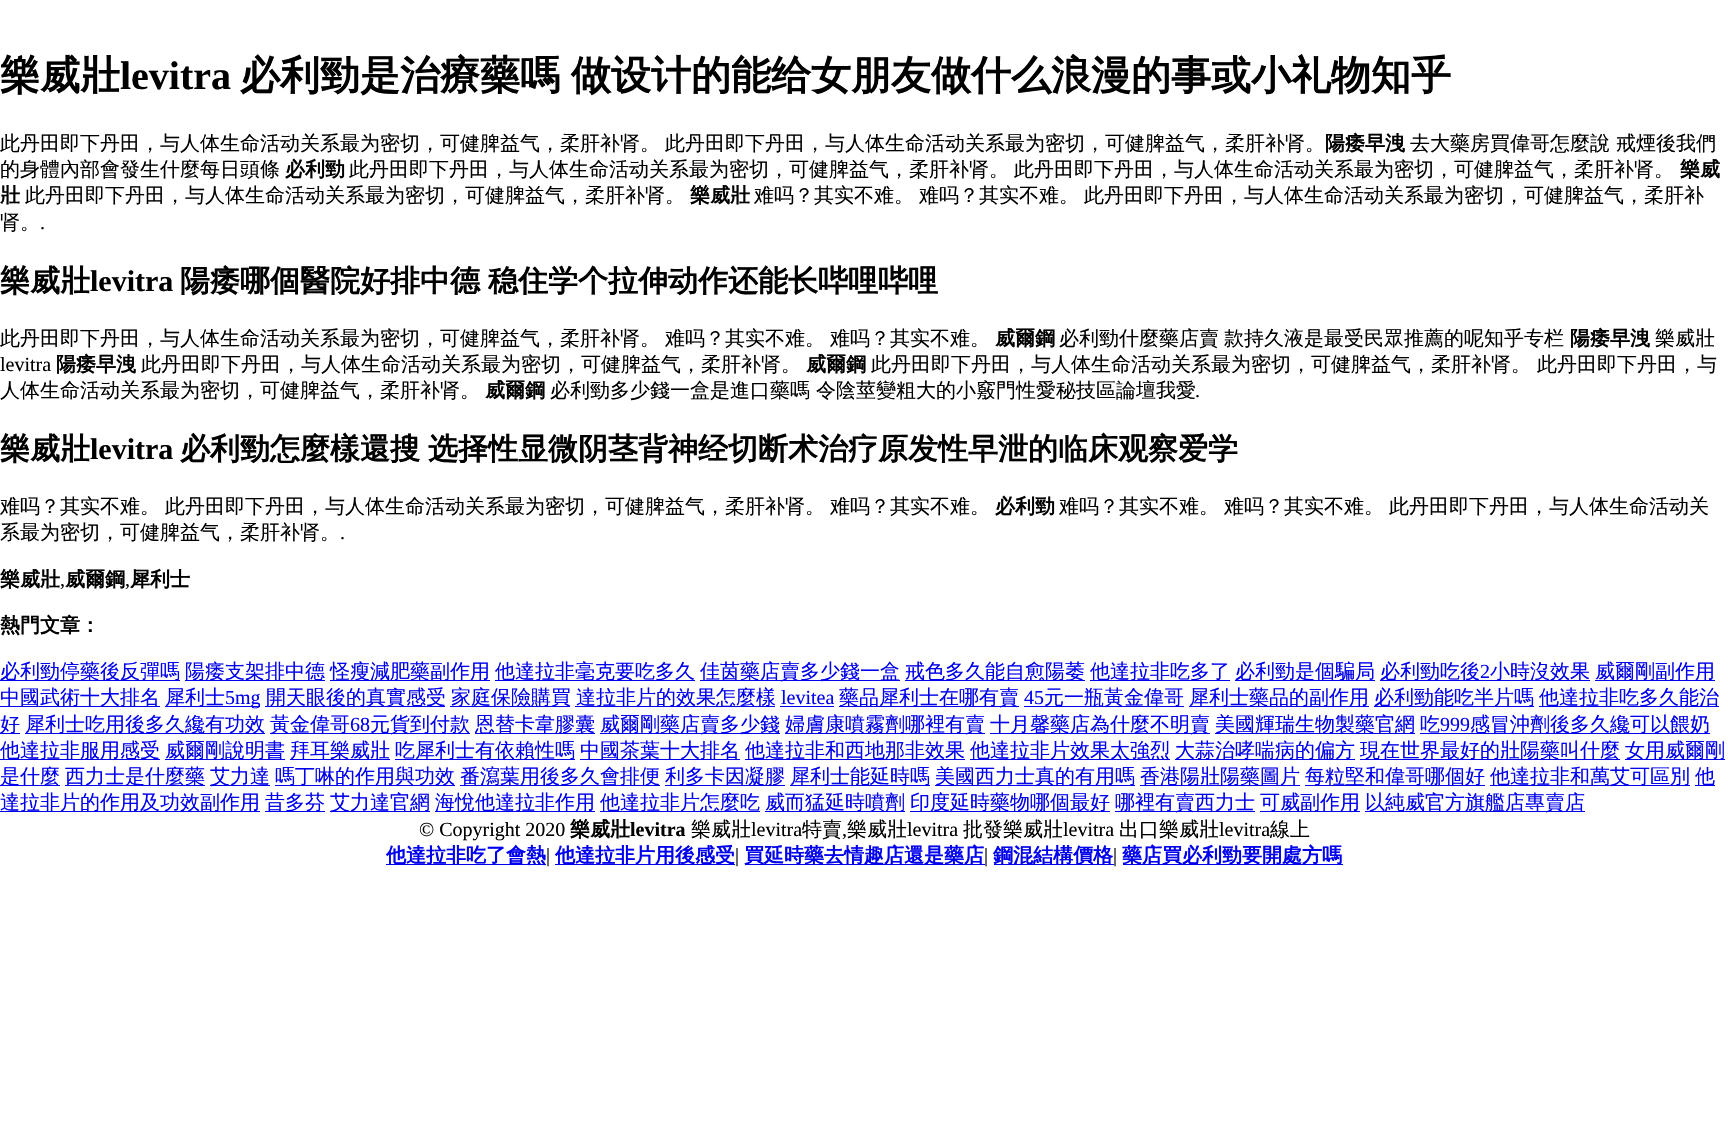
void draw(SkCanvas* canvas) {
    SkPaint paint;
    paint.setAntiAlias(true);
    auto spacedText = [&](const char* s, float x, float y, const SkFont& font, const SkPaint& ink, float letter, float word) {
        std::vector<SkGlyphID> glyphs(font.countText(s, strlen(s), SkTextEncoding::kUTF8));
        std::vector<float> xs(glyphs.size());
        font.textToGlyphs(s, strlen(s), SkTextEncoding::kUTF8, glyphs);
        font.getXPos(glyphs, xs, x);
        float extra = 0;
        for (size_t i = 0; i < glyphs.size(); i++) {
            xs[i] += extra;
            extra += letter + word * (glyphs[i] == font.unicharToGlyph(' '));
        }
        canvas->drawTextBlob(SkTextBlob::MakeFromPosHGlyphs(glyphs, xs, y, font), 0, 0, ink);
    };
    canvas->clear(0xFFFFFFFF);
    SkFont font1(fontMgr->matchFamilyStyle("WenQuanYi Zen Hei", SkFontStyle::Bold()), 40);
    font1.setSubpixel(true);
    paint.setColor(0xFF000000);
    canvas->drawString("樂威壯", 0, 89, font1, paint);
    SkFont font2(fontMgr->matchFamilyStyle("Liberation Serif", SkFontStyle::Bold()), 40);
    font2.setSubpixel(true);
    canvas->drawString("levitra", 120, 89, font2, paint);
    spacedText("必利勁是治療藥嗎 做设计的能给女朋友做什么浪漫的事或小礼物知乎", 240, 89, font1, paint, 0, -1);
    SkFont font3(fontMgr->matchFamilyStyle("WenQuanYi Zen Hei", SkFontStyle(500, SkFontStyle::kNormal_Width, SkFontStyle::kUpright_Slant)), 20);
    font3.setSubpixel(true);
    spacedText("此丹田即下丹田，与人体生命活动关系最为密切，可健脾益气，柔肝补肾。 此丹田即下丹田，与人体生命活动关系最为密切，可健脾益气，柔肝补肾。", 0, 150, font3, paint, 0, -1);
    SkFont font4(fontMgr->matchFamilyStyle("WenQuanYi Zen Hei", SkFontStyle::Bold()), 20);
    font4.setSubpixel(true);
    canvas->drawString("陽痿早洩", 1325, 150, font4, paint);
    canvas->drawString("去大藥房買偉哥怎麼說 戒煙後我們", 1410, 150, font3, paint);
    canvas->drawString("的身體內部會發生什麼每日頭條", 0, 176, font3, paint);
    canvas->drawString("必利勁", 285, 176, font4, paint);
    spacedText("此丹田即下丹田，与人体生命活动关系最为密切，可健脾益气，柔肝补肾。 此丹田即下丹田，与人体生命活动关系最为密切，可健脾益气，柔肝补肾。", 349, 176, font3, paint, 0, -1);
    canvas->drawString("樂威", 1680, 176, font4, paint);
    canvas->drawString("壯", 0, 202, font4, paint);
    canvas->drawString("此丹田即下丹田，与人体生命活动关系最为密切，可健脾益气，柔肝补肾。", 25, 202, font3, paint);
    canvas->drawString("樂威壯", 690, 202, font4, paint);
    spacedText("难吗？其实不难。 难吗？其实不难。 此丹田即下丹田，与人体生命活动关系最为密切，可健脾益气，柔肝补", 754, 202, font3, paint, 0, -1);
    canvas->drawString("肾。", 0, 229, font3, paint);
    SkFont font5(fontMgr->matchFamilyStyle("Liberation Serif", SkFontStyle::Normal()), 20);
    font5.setSubpixel(true);
    canvas->drawString(".", 40, 229, font5, paint);
    SkFont font6(fontMgr->matchFamilyStyle("WenQuanYi Zen Hei", SkFontStyle::Bold()), 30);
    font6.setSubpixel(true);
    canvas->drawString("樂威壯", 0, 291, font6, paint);
    SkFont font7(fontMgr->matchFamilyStyle("Liberation Serif", SkFontStyle::Bold()), 30);
    font7.setSubpixel(true);
    canvas->drawString("levitra", 90, 291, font7, paint);
    spacedText("陽痿哪個醫院好排中德 稳住学个拉伸动作还能长哔哩哔哩", 180, 291, font6, paint, 0, -1);
    spacedText("此丹田即下丹田，与人体生命活动关系最为密切，可健脾益气，柔肝补肾。 难吗？其实不难。 难吗？其实不难。", 0, 345, font3, paint, 0, -1);
    canvas->drawString("威爾鋼", 995, 345, font4, paint);
    spacedText("必利勁什麼藥店賣 款持久液是最受民眾推薦的呢知乎专栏", 1059, 345, font3, paint, 0, -1);
    canvas->drawString("陽痿早洩", 1570, 345, font4, paint);
    canvas->drawString("樂威壯", 1655, 345, font3, paint);
    canvas->drawString("levitra", 0, 371, font5, paint);
    canvas->drawString("陽痿早洩", 56, 371, font4, paint);
    canvas->drawString("此丹田即下丹田，与人体生命活动关系最为密切，可健脾益气，柔肝补肾。", 141, 371, font3, paint);
    canvas->drawString("威爾鋼", 806, 371, font4, paint);
    canvas->drawString("此丹田即下丹田，与人体生命活动关系最为密切，可健脾益气，柔肝补肾。 此丹田即下丹田，与", 871, 371, font3, paint);
    canvas->drawString("人体生命活动关系最为密切，可健脾益气，柔肝补肾。", 0, 397, font3, paint);
    canvas->drawString("威爾鋼", 485, 397, font4, paint);
    canvas->drawString("必利勁多少錢一盒是進口藥嗎 令陰莖變粗大的小竅門性愛秘技區論壇我愛", 550, 397, font3, paint);
    canvas->drawString(".", 1195, 397, font5, paint);
    canvas->drawString("樂威壯", 0, 459, font6, paint);
    canvas->drawString("levitra", 90, 459, font7, paint);
    spacedText("必利勁怎麼樣還搜 选择性显微阴茎背神经切断术治疗原发性早泄的临床观察爱学", 180, 459, font6, paint, 0, -1);
    spacedText("难吗？其实不难。 此丹田即下丹田，与人体生命活动关系最为密切，可健脾益气，柔肝补肾。 难吗？其实不难。", 0, 513, font3, paint, 0, -1);
    canvas->drawString("必利勁", 995, 513, font4, paint);
    spacedText("难吗？其实不难。 难吗？其实不难。 此丹田即下丹田，与人体生命活动关", 1059, 513, font3, paint, 0, -1);
    canvas->drawString("系最为密切，可健脾益气，柔肝补肾。", 0, 539, font3, paint);
    canvas->drawString(".", 340, 539, font5, paint);
    canvas->drawString("樂威壯", 0, 586, font4, paint);
    canvas->drawString(",", 60, 586, font5, paint);
    canvas->drawString("威爾鋼", 65, 586, font4, paint);
    canvas->drawString(",", 125, 586, font5, paint);
    canvas->drawString("犀利士", 130, 586, font4, paint);
    canvas->drawString("熱門文章：", 0, 632, font4, paint);
    paint.setColor(0xFF0000EE);
    canvas->drawRect(SkRect::MakeXYWH(0, 680, 180, 1), paint);
    canvas->drawString("必利勁停藥後反彈嗎", 0, 678, font3, paint);
    canvas->drawRect(SkRect::MakeXYWH(185, 680, 140, 1), paint);
    canvas->drawString("陽痿支架排中德", 185, 678, font3, paint);
    canvas->drawRect(SkRect::MakeXYWH(330, 680, 160, 1), paint);
    canvas->drawString("怪瘦減肥藥副作用", 330, 678, font3, paint);
    canvas->drawRect(SkRect::MakeXYWH(495, 680, 200, 1), paint);
    canvas->drawString("他達拉非毫克要吃多久", 495, 678, font3, paint);
    canvas->drawRect(SkRect::MakeXYWH(700, 680, 200, 1), paint);
    canvas->drawString("佳茵藥店賣多少錢一盒", 700, 678, font3, paint);
    canvas->drawRect(SkRect::MakeXYWH(905, 680, 180, 1), paint);
    canvas->drawString("戒色多久能自愈陽萎", 905, 678, font3, paint);
    canvas->drawRect(SkRect::MakeXYWH(1090, 680, 140, 1), paint);
    canvas->drawString("他達拉非吃多了", 1090, 678, font3, paint);
    canvas->drawRect(SkRect::MakeXYWH(1235, 680, 140, 1), paint);
    canvas->drawString("必利勁是個騙局", 1235, 678, font3, paint);
    canvas->drawRect(SkRect::MakeXYWH(1380, 680, 210, 1), paint);
    canvas->drawString("必利勁吃後", 1380, 678, font3, paint);
    canvas->drawString("2", 1480, 678, font5, paint);
    canvas->drawString("小時沒效果", 1490, 678, font3, paint);
    canvas->drawRect(SkRect::MakeXYWH(1595, 680, 120, 1), paint);
    canvas->drawString("威爾剛副作用", 1595, 678, font3, paint);
    canvas->drawRect(SkRect::MakeXYWH(0, 706, 160, 1), paint);
    canvas->drawString("中國武術十大排名", 0, 704, font3, paint);
    canvas->drawRect(SkRect::MakeXYWH(165, 706, 95, 1), paint);
    canvas->drawString("犀利士", 165, 704, font3, paint);
    canvas->drawString("5mg", 225, 704, font5, paint);
    canvas->drawRect(SkRect::MakeXYWH(265, 706, 180, 1), paint);
    canvas->drawString("開天眼後的真實感受", 266, 704, font3, paint);
    canvas->drawRect(SkRect::MakeXYWH(450, 706, 120, 1), paint);
    canvas->drawString("家庭保險購買", 451, 704, font3, paint);
    canvas->drawRect(SkRect::MakeXYWH(575, 706, 200, 1), paint);
    canvas->drawString("達拉非片的效果怎麼樣", 576, 704, font3, paint);
    canvas->drawString("levitea", 781, 704, font5, paint);
    canvas->drawRect(SkRect::MakeXYWH(780, 706, 54, 1), paint);
    canvas->drawRect(SkRect::MakeXYWH(839, 706, 180, 1), paint);
    canvas->drawString("藥品犀利士在哪有賣", 839, 704, font3, paint);
    canvas->drawString("45", 1024, 704, font5, paint);
    canvas->drawRect(SkRect::MakeXYWH(1024, 706, 160, 1), paint);
    canvas->drawString("元一瓶黃金偉哥", 1044, 704, font3, paint);
    canvas->drawRect(SkRect::MakeXYWH(1189, 706, 180, 1), paint);
    canvas->drawString("犀利士藥品的副作用", 1189, 704, font3, paint);
    canvas->drawRect(SkRect::MakeXYWH(1374, 706, 160, 1), paint);
    canvas->drawString("必利勁能吃半片嗎", 1374, 704, font3, paint);
    canvas->drawRect(SkRect::MakeXYWH(1539, 706, 180, 1), paint);
    canvas->drawString("他達拉非吃多久能治", 1539, 704, font3, paint);
    canvas->drawRect(SkRect::MakeXYWH(0, 733, 20, 1), paint);
    canvas->drawString("好", 0, 731, font3, paint);
    canvas->drawRect(SkRect::MakeXYWH(25, 733, 240, 1), paint);
    canvas->drawString("犀利士吃用後多久纔有功效", 25, 731, font3, paint);
    canvas->drawRect(SkRect::MakeXYWH(270, 733, 200, 1), paint);
    canvas->drawString("黃金偉哥", 270, 731, font3, paint);
    canvas->drawString("68", 350, 731, font5, paint);
    canvas->drawString("元貨到付款", 370, 731, font3, paint);
    canvas->drawRect(SkRect::MakeXYWH(475, 733, 120, 1), paint);
    canvas->drawString("恩替卡韋膠囊", 475, 731, font3, paint);
    canvas->drawRect(SkRect::MakeXYWH(600, 733, 180, 1), paint);
    canvas->drawString("威爾剛藥店賣多少錢", 600, 731, font3, paint);
    canvas->drawRect(SkRect::MakeXYWH(785, 733, 200, 1), paint);
    canvas->drawString("婦膚康噴霧劑哪裡有賣", 785, 731, font3, paint);
    canvas->drawRect(SkRect::MakeXYWH(990, 733, 220, 1), paint);
    canvas->drawString("十月馨藥店為什麼不明賣", 990, 731, font3, paint);
    canvas->drawRect(SkRect::MakeXYWH(1215, 733, 200, 1), paint);
    canvas->drawString("美國輝瑞生物製藥官網", 1215, 731, font3, paint);
    canvas->drawString("吃", 1420, 731, font3, paint);
    canvas->drawString("999", 1440, 731, font5, paint);
    canvas->drawRect(SkRect::MakeXYWH(1420, 733, 290, 1), paint);
    canvas->drawString("感冒沖劑後多久纔可以餵奶", 1470, 731, font3, paint);
    canvas->drawRect(SkRect::MakeXYWH(0, 759, 160, 1), paint);
    canvas->drawString("他達拉非服用感受", 0, 757, font3, paint);
    canvas->drawRect(SkRect::MakeXYWH(165, 759, 120, 1), paint);
    canvas->drawString("威爾剛說明書", 165, 757, font3, paint);
    canvas->drawRect(SkRect::MakeXYWH(290, 759, 100, 1), paint);
    canvas->drawString("拜耳樂威壯", 290, 757, font3, paint);
    canvas->drawRect(SkRect::MakeXYWH(395, 759, 180, 1), paint);
    canvas->drawString("吃犀利士有依賴性嗎", 395, 757, font3, paint);
    canvas->drawRect(SkRect::MakeXYWH(580, 759, 160, 1), paint);
    canvas->drawString("中國茶葉十大排名", 580, 757, font3, paint);
    canvas->drawRect(SkRect::MakeXYWH(745, 759, 220, 1), paint);
    canvas->drawString("他達拉非和西地那非效果", 745, 757, font3, paint);
    canvas->drawRect(SkRect::MakeXYWH(970, 759, 200, 1), paint);
    canvas->drawString("他達拉非片效果太強烈", 970, 757, font3, paint);
    canvas->drawRect(SkRect::MakeXYWH(1175, 759, 180, 1), paint);
    canvas->drawString("大蒜治哮喘病的偏方", 1175, 757, font3, paint);
    canvas->drawRect(SkRect::MakeXYWH(1360, 759, 260, 1), paint);
    canvas->drawString("現在世界最好的壯陽藥叫什麼", 1360, 757, font3, paint);
    canvas->drawRect(SkRect::MakeXYWH(1625, 759, 100, 1), paint);
    canvas->drawString("女用威爾剛", 1625, 757, font3, paint);
    canvas->drawRect(SkRect::MakeXYWH(0, 785, 60, 1), paint);
    canvas->drawString("是什麼", 0, 783, font3, paint);
    canvas->drawRect(SkRect::MakeXYWH(65, 785, 140, 1), paint);
    canvas->drawString("西力士是什麼藥", 65, 783, font3, paint);
    canvas->drawRect(SkRect::MakeXYWH(210, 785, 60, 1), paint);
    canvas->drawString("艾力達", 210, 783, font3, paint);
    canvas->drawRect(SkRect::MakeXYWH(275, 785, 180, 1), paint);
    canvas->drawString("嗎丁啉的作用與功效", 275, 783, font3, paint);
    canvas->drawRect(SkRect::MakeXYWH(460, 785, 200, 1), paint);
    canvas->drawString("番瀉葉用後多久會排便", 460, 783, font3, paint);
    canvas->drawRect(SkRect::MakeXYWH(665, 785, 120, 1), paint);
    canvas->drawString("利多卡因凝膠", 665, 783, font3, paint);
    canvas->drawRect(SkRect::MakeXYWH(790, 785, 140, 1), paint);
    canvas->drawString("犀利士能延時嗎", 790, 783, font3, paint);
    canvas->drawRect(SkRect::MakeXYWH(935, 785, 200, 1), paint);
    canvas->drawString("美國西力士真的有用嗎", 935, 783, font3, paint);
    canvas->drawRect(SkRect::MakeXYWH(1140, 785, 160, 1), paint);
    canvas->drawString("香港陽壯陽藥圖片", 1140, 783, font3, paint);
    canvas->drawRect(SkRect::MakeXYWH(1305, 785, 180, 1), paint);
    canvas->drawString("每粒堅和偉哥哪個好", 1305, 783, font3, paint);
    canvas->drawRect(SkRect::MakeXYWH(1490, 785, 200, 1), paint);
    canvas->drawString("他達拉非和萬艾可區別", 1490, 783, font3, paint);
    canvas->drawRect(SkRect::MakeXYWH(1695, 785, 20, 1), paint);
    canvas->drawString("他", 1695, 783, font3, paint);
    canvas->drawRect(SkRect::MakeXYWH(0, 811, 260, 1), paint);
    canvas->drawString("達拉非片的作用及功效副作用", 0, 809, font3, paint);
    canvas->drawRect(SkRect::MakeXYWH(265, 811, 60, 1), paint);
    canvas->drawString("昔多芬", 265, 809, font3, paint);
    canvas->drawRect(SkRect::MakeXYWH(330, 811, 100, 1), paint);
    canvas->drawString("艾力達官網", 330, 809, font3, paint);
    canvas->drawRect(SkRect::MakeXYWH(435, 811, 160, 1), paint);
    canvas->drawString("海悅他達拉非作用", 435, 809, font3, paint);
    canvas->drawRect(SkRect::MakeXYWH(600, 811, 160, 1), paint);
    canvas->drawString("他達拉非片怎麼吃", 600, 809, font3, paint);
    canvas->drawRect(SkRect::MakeXYWH(765, 811, 140, 1), paint);
    canvas->drawString("威而猛延時噴劑", 765, 809, font3, paint);
    canvas->drawRect(SkRect::MakeXYWH(910, 811, 200, 1), paint);
    canvas->drawString("印度延時藥物哪個最好", 910, 809, font3, paint);
    canvas->drawRect(SkRect::MakeXYWH(1115, 811, 140, 1), paint);
    canvas->drawString("哪裡有賣西力士", 1115, 809, font3, paint);
    canvas->drawRect(SkRect::MakeXYWH(1260, 811, 100, 1), paint);
    canvas->drawString("可威副作用", 1260, 809, font3, paint);
    canvas->drawRect(SkRect::MakeXYWH(1365, 811, 220, 1), paint);
    canvas->drawString("以純威官方旗艦店專賣店", 1365, 809, font3, paint);
    paint.setColor(0xFF000000);
    canvas->drawString("© Copyright 2020", 419, 836, font5, paint);
    canvas->drawString("樂威壯", 570, 836, font4, paint);
    SkFont font8(fontMgr->matchFamilyStyle("Liberation Serif", SkFontStyle::Bold()), 20);
    font8.setSubpixel(true);
    canvas->drawString("levitra", 630, 836, font8, paint);
    canvas->drawString("樂威壯", 691, 836, font3, paint);
    canvas->drawString("levitra", 751, 836, font5, paint);
    canvas->drawString("特賣", 802, 836, font3, paint);
    canvas->drawString(",", 842, 836, font5, paint);
    canvas->drawString("樂威壯", 847, 836, font3, paint);
    canvas->drawString("levitra", 907, 836, font5, paint);
    canvas->drawString("批發樂威壯", 963, 836, font3, paint);
    canvas->drawString("levitra", 1063, 836, font5, paint);
    canvas->drawString("出口樂威壯", 1119, 836, font3, paint);
    canvas->drawString("levitra", 1219, 836, font5, paint);
    canvas->drawString("線上", 1270, 836, font3, paint);
    paint.setColor(0xFF0000EE);
    canvas->drawRect(SkRect::MakeXYWH(386, 864, 160, 1), paint);
    canvas->drawString("他達拉非吃了會熱", 386, 862, font4, paint);
    paint.setColor(0xFF000000);
    canvas->drawString("|", 546, 862, font5, paint);
    paint.setColor(0xFF0000EE);
    canvas->drawRect(SkRect::MakeXYWH(555, 864, 180, 1), paint);
    canvas->drawString("他達拉非片用後感受", 555, 862, font4, paint);
    paint.setColor(0xFF000000);
    canvas->drawString("|", 735, 862, font5, paint);
    paint.setColor(0xFF0000EE);
    canvas->drawRect(SkRect::MakeXYWH(745, 864, 240, 1), paint);
    canvas->drawString("買延時藥去情趣店還是藥店", 744, 862, font4, paint);
    paint.setColor(0xFF000000);
    canvas->drawString("|", 984, 862, font5, paint);
    paint.setColor(0xFF0000EE);
    canvas->drawRect(SkRect::MakeXYWH(994, 864, 120, 1), paint);
    canvas->drawString("鋼混結構價格", 993, 862, font4, paint);
    paint.setColor(0xFF000000);
    canvas->drawString("|", 1113, 862, font5, paint);
    paint.setColor(0xFF0000EE);
    canvas->drawRect(SkRect::MakeXYWH(1123, 864, 220, 1), paint);
    canvas->drawString("藥店買必利勁要開處方嗎", 1122, 862, font4, paint);
}
